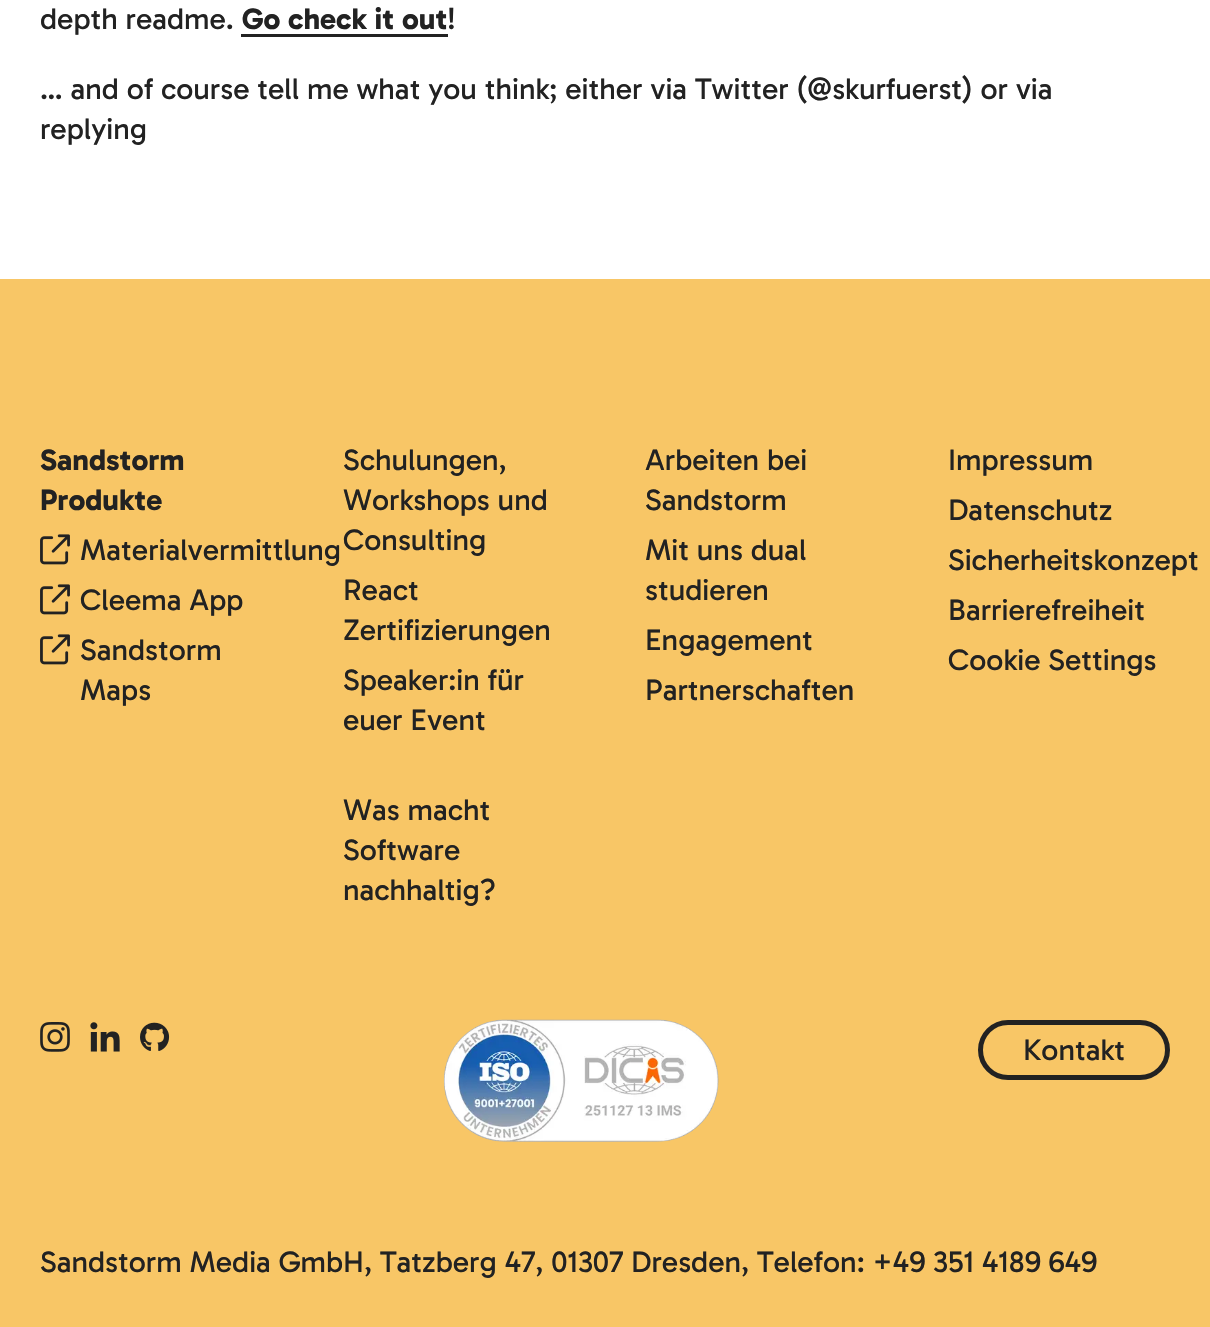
void draw(SkCanvas* canvas) {
    SkPaint paint;
    paint.setAntiAlias(true);
    canvas->clear(0xFFFFFFFF);
    SkFont font1(fontMgr->matchFamilyStyle("Gabarito", SkFontStyle::Normal()), 30);
    font1.setSubpixel(true);
    paint.setColor(0xFF222222);
    canvas->drawString("depth readme.", 40, 29, font1, paint);
    SkFont font2(fontMgr->matchFamilyStyle("Gabarito", SkFontStyle::Bold()), 30);
    font2.setSubpixel(true);
    canvas->drawString("Go check it out", 242, 29, font2, paint);
    canvas->drawRect(SkRect::MakeXYWH(241, 34, 207, 3), paint);
    canvas->drawString("!", 447, 29, font1, paint);
    canvas->drawString("… and of course tell me what you think; either via Twitter (@skurfuerst) or via", 40, 99, font1, paint);
    canvas->drawString("replying", 40, 139, font1, paint);
    paint.setColor(0xFFF8C666);
    canvas->drawRect(SkRect::MakeXYWH(0, 279, 1210, 1048), paint);
    paint.setColor(0xFF222222);
    canvas->drawString("Sandstorm", 40, 470, font2, paint);
    canvas->drawString("Produkte", 40, 510, font2, paint);
    canvas->drawImageRect(SkImages::DeferredFromEncodedData(SkData::MakeFromFileName("img1.png")), SkRect::MakeXYWH(40, 534, 30, 31), SkSamplingOptions());
    canvas->drawString("Materialvermittlung", 80, 560, font1, paint);
    canvas->drawImageRect(SkImages::DeferredFromEncodedData(SkData::MakeFromFileName("img1.png")), SkRect::MakeXYWH(40, 584, 30, 31), SkSamplingOptions());
    canvas->drawString("Cleema App", 80, 610, font1, paint);
    canvas->drawImageRect(SkImages::DeferredFromEncodedData(SkData::MakeFromFileName("img1.png")), SkRect::MakeXYWH(40, 634, 30, 31), SkSamplingOptions());
    canvas->drawString("Sandstorm", 80, 660, font1, paint);
    canvas->drawString("Maps", 80, 700, font1, paint);
    canvas->drawString("Schulungen,", 343, 470, font1, paint);
    canvas->drawString("Workshops und", 343, 510, font1, paint);
    canvas->drawString("Consulting", 343, 550, font1, paint);
    canvas->drawString("React", 343, 600, font1, paint);
    canvas->drawString("Zertifizierungen", 343, 640, font1, paint);
    canvas->drawString("Speaker:in für", 343, 690, font1, paint);
    canvas->drawString("euer Event", 343, 730, font1, paint);
    canvas->drawString("Was macht", 343, 820, font1, paint);
    canvas->drawString("Software", 343, 860, font1, paint);
    canvas->drawString("nachhaltig?", 343, 900, font1, paint);
    canvas->drawString("Arbeiten bei", 645, 470, font1, paint);
    canvas->drawString("Sandstorm", 645, 510, font1, paint);
    canvas->drawString("Mit uns dual", 645, 560, font1, paint);
    canvas->drawString("studieren", 645, 600, font1, paint);
    canvas->drawString("Engagement", 645, 650, font1, paint);
    canvas->drawString("Partnerschaften", 645, 700, font1, paint);
    canvas->drawString("Impressum", 948, 470, font1, paint);
    canvas->drawString("Datenschutz", 948, 520, font1, paint);
    canvas->drawString("Sicherheitskonzept", 948, 570, font1, paint);
    canvas->drawString("Barrierefreiheit", 948, 620, font1, paint);
    canvas->drawString("Cookie Settings", 948, 670, font1, paint);
    canvas->drawImageRect(SkImages::DeferredFromEncodedData(SkData::MakeFromFileName("img2.png")), SkRect::MakeXYWH(40, 1022, 30, 30), SkSamplingOptions());
    canvas->drawImageRect(SkImages::DeferredFromEncodedData(SkData::MakeFromFileName("img3.png")), SkRect::MakeXYWH(90, 1022, 30, 30), SkSamplingOptions());
    canvas->drawImageRect(SkImages::DeferredFromEncodedData(SkData::MakeFromFileName("img4.png")), SkRect::MakeXYWH(140, 1022, 30, 29), SkSamplingOptions());
    canvas->drawImageRect(SkImages::DeferredFromEncodedData(SkData::MakeFromFileName("img5.png")), SkRect::MakeXYWH(443, 1019, 276, 123), SkSamplingOptions());
    paint.setStyle(SkPaint::kStroke_Style);
    paint.setStrokeWidth(5);
    canvas->drawRoundRect(SkRect::MakeXYWH(980.5f, 1022.5f, 187, 55), 27.5f, 27.5f, paint);
    paint.setStyle(SkPaint::kFill_Style);
    canvas->drawString("Kontakt", 1023, 1060, font1, paint);
    canvas->drawString("Sandstorm Media GmbH, Tatzberg 47, 01307 Dresden, Telefon: +49 351 4189 649", 40, 1272, font1, paint);
}
